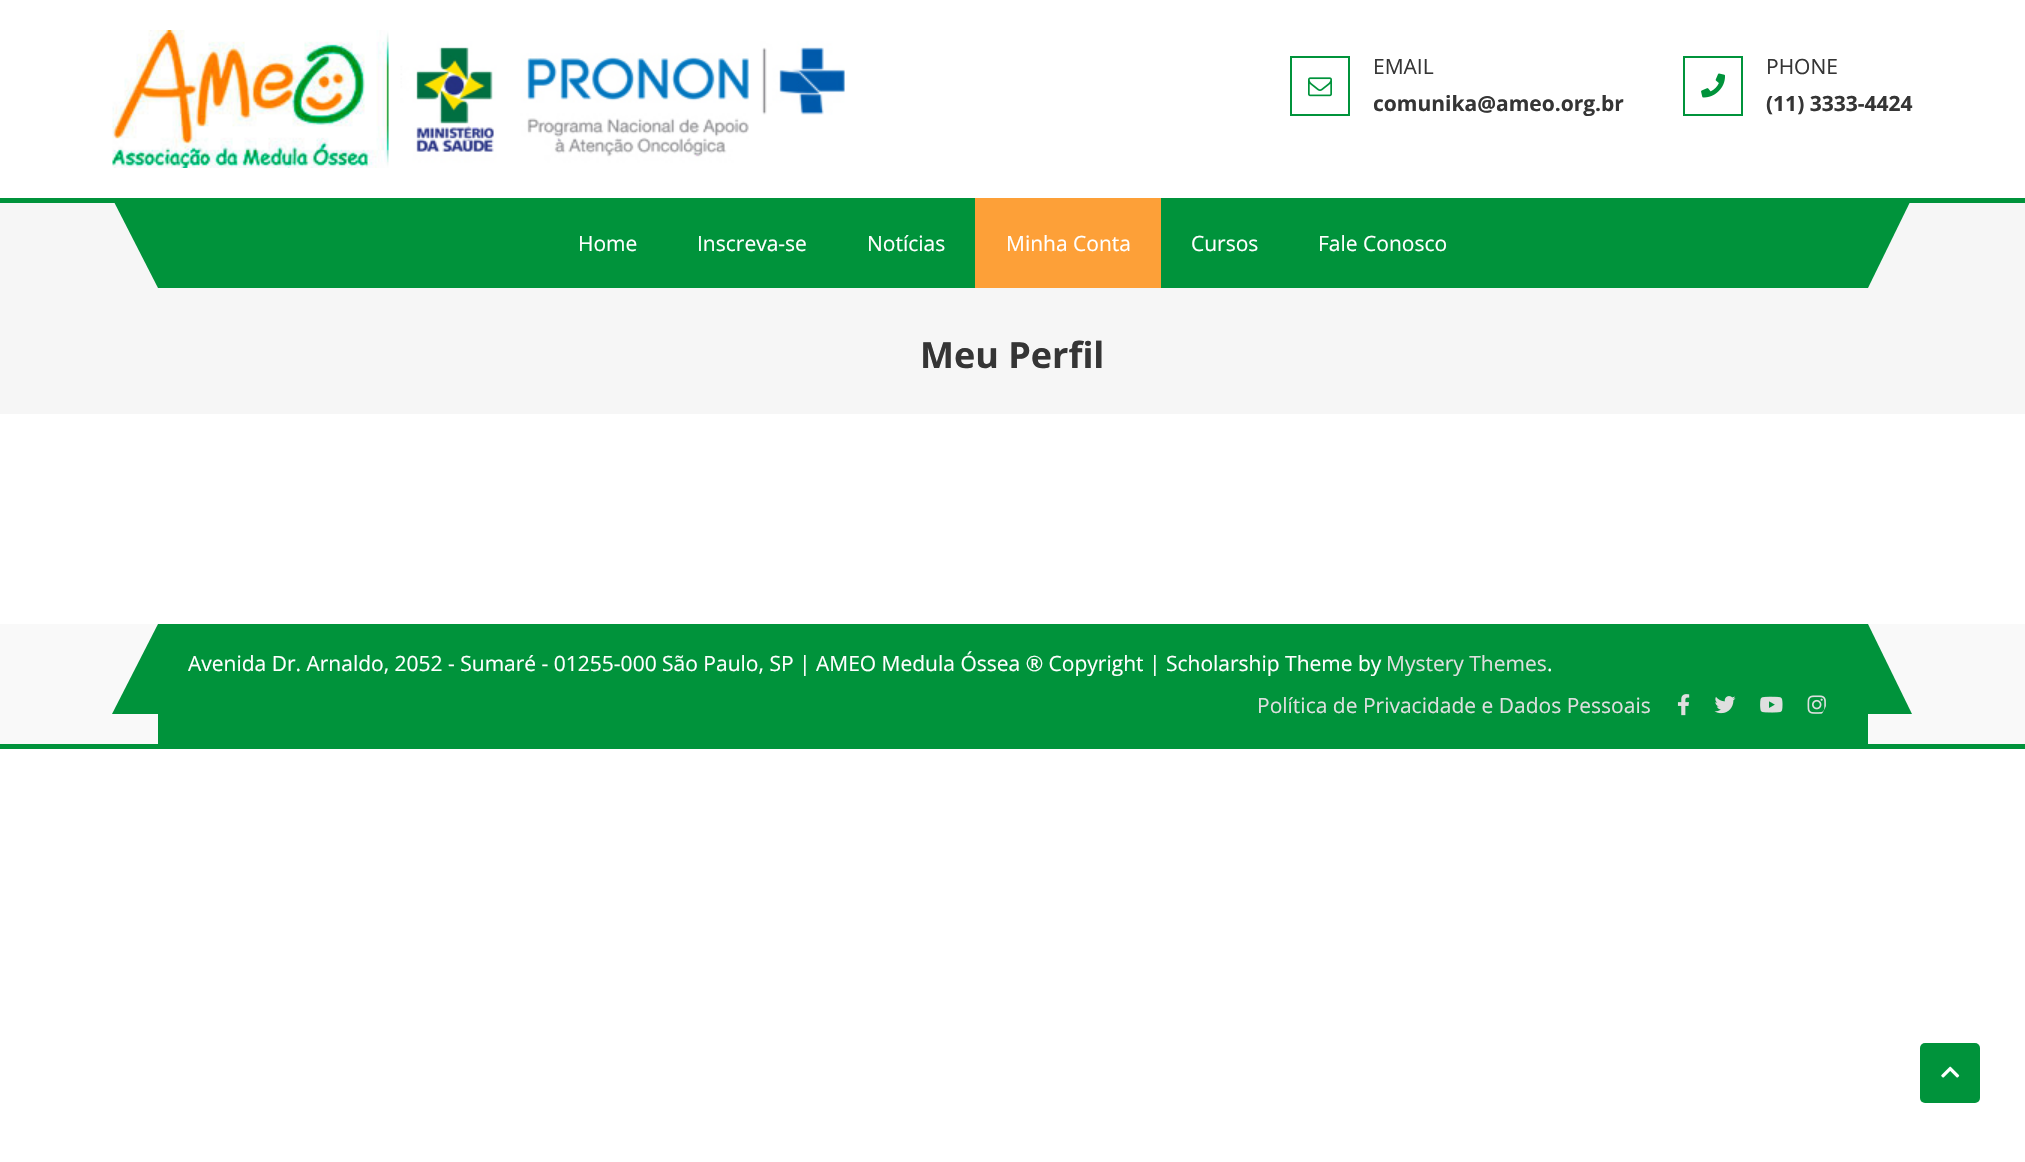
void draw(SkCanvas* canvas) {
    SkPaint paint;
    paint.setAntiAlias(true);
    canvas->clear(0xFFFFFFFF);
    paint.setColor(0xFF00933B);
    canvas->drawRect(SkRect::MakeXYWH(0, 198, 2025, 5), paint);
    canvas->drawImageRect(SkImages::DeferredFromEncodedData(SkData::MakeFromFileName("img1.png")), SkRect::MakeXYWH(112, 30, 733, 138), SkSamplingOptions());
    paint.setStyle(SkPaint::kStroke_Style);
    paint.setStrokeWidth(2);
    canvas->drawRect(SkRect::MakeXYWH(1291, 57, 58, 58), paint);
    canvas->drawImageRect(SkImages::DeferredFromEncodedData(SkData::MakeFromFileName("img2.png")), SkRect::MakeXYWH(1308, 77, 24, 20), SkSamplingOptions());
    SkFont font1(fontMgr->matchFamilyStyle("Open Sans", SkFontStyle::Normal()), 21);
    font1.setSubpixel(true);
    paint.setStyle(SkPaint::kFill_Style);
    paint.setColor(0xFF353535);
    canvas->drawString("EMAIL", 1373, 74, font1, paint);
    SkFont font2(fontMgr->matchFamilyStyle("Open Sans", SkFontStyle::Bold()), 21);
    font2.setSubpixel(true);
    canvas->drawString("comunika@ameo.org.br", 1373, 111, font2, paint);
    paint.setStyle(SkPaint::kStroke_Style);
    paint.setColor(0xFF00933B);
    canvas->drawRect(SkRect::MakeXYWH(1684, 57, 58, 58), paint);
    canvas->drawImageRect(SkImages::DeferredFromEncodedData(SkData::MakeFromFileName("img3.png")), SkRect::MakeXYWH(1701, 73, 24, 25), SkSamplingOptions());
    paint.setStyle(SkPaint::kFill_Style);
    paint.setColor(0xFF353535);
    canvas->drawString("PHONE", 1766, 74, font1, paint);
    canvas->drawString("(11) 3333-4424", 1766, 111, font2, paint);
    paint.setColor(0xFFF6F6F6);
    canvas->drawRect(SkRect::MakeXYWH(0, 203, 2025, 211), paint);
    paint.setColor(0xFF00933B);
    canvas->drawRect(SkRect::MakeXYWH(158, 203, 1710, 85), paint);
    canvas->drawPath(SkPathBuilder().moveTo(112, 198).lineTo(202, 198).lineTo(158, 288).close().detach(), paint);
    paint.setColor(0xFFFFFFFF);
    canvas->drawString("Home", 578, 251, font1, paint);
    canvas->drawString("Inscreva-se", 697, 251, font1, paint);
    canvas->drawString("Notícias", 867, 251, font1, paint);
    paint.setColor(0xFFFDA038);
    canvas->drawRect(SkRect::MakeXYWH(975, 198, 186, 90), paint);
    paint.setColor(0xFFFFFFFF);
    canvas->drawString("Minha Conta", 1006, 251, font1, paint);
    canvas->drawString("Cursos", 1191, 251, font1, paint);
    canvas->drawString("Fale Conosco", 1318, 251, font1, paint);
    paint.setColor(0xFF00933B);
    canvas->drawPath(SkPathBuilder().moveTo(1822, 198).lineTo(1912, 198).lineTo(1868, 288).close().detach(), paint);
    SkFont font3(fontMgr->matchFamilyStyle("Open Sans", SkFontStyle::Bold()), 36);
    font3.setSubpixel(true);
    paint.setColor(0xFF353535);
    canvas->drawString("Meu Perfil", 920, 368, font3, paint);
    paint.setColor(0xFFF9F9F9);
    canvas->drawRect(SkRect::MakeXYWH(0, 624, 2025, 120), paint);
    paint.setColor(0xFF00933B);
    canvas->drawRect(SkRect::MakeXYWH(0, 744, 2025, 5), paint);
    canvas->drawRect(SkRect::MakeXYWH(158, 624, 1710, 120), paint);
    paint.setColor(0xFFFFFFFF);
    canvas->drawString("Avenida Dr. Arnaldo, 2052 - Sumaré - 01255-000 São Paulo, SP | AMEO Medula Óssea ® Copyright | Scholarship Theme by", 188, 671, font1, paint);
    paint.setColor(0xFF00933B);
    canvas->drawPath(SkPathBuilder().moveTo(202, 714).lineTo(112, 714).lineTo(158, 624).close().detach(), paint);
    paint.setColor(0xFFDFDFDF);
    canvas->drawString("Mystery Themes", 1386, 671, font1, paint);
    paint.setColor(0xFFFFFFFF);
    canvas->drawString(".", 1547, 671, font1, paint);
    paint.setColor(0xFFDFDFDF);
    canvas->drawString("Política de Privacidade e Dados Pessoais", 1257, 713, font1, paint);
    canvas->drawImageRect(SkImages::DeferredFromEncodedData(SkData::MakeFromFileName("img4.png")), SkRect::MakeXYWH(1677, 694, 13, 22), SkSamplingOptions());
    canvas->drawImageRect(SkImages::DeferredFromEncodedData(SkData::MakeFromFileName("img5.png")), SkRect::MakeXYWH(1714, 696, 22, 18), SkSamplingOptions());
    canvas->drawImageRect(SkImages::DeferredFromEncodedData(SkData::MakeFromFileName("img6.png")), SkRect::MakeXYWH(1760, 696, 23, 17), SkSamplingOptions());
    canvas->drawImageRect(SkImages::DeferredFromEncodedData(SkData::MakeFromFileName("img7.png")), SkRect::MakeXYWH(1807, 695, 19, 19), SkSamplingOptions());
    paint.setColor(0xFF00933B);
    canvas->drawPath(SkPathBuilder().moveTo(1912, 714).lineTo(1822, 714).lineTo(1868, 624).close().detach(), paint);
    canvas->drawRoundRect(SkRect::MakeXYWH(1920, 1043, 60, 60), 5, 5, paint);
    canvas->drawImageRect(SkImages::DeferredFromEncodedData(SkData::MakeFromFileName("img8.png")), SkRect::MakeXYWH(1941, 1066, 19, 12), SkSamplingOptions());
}
